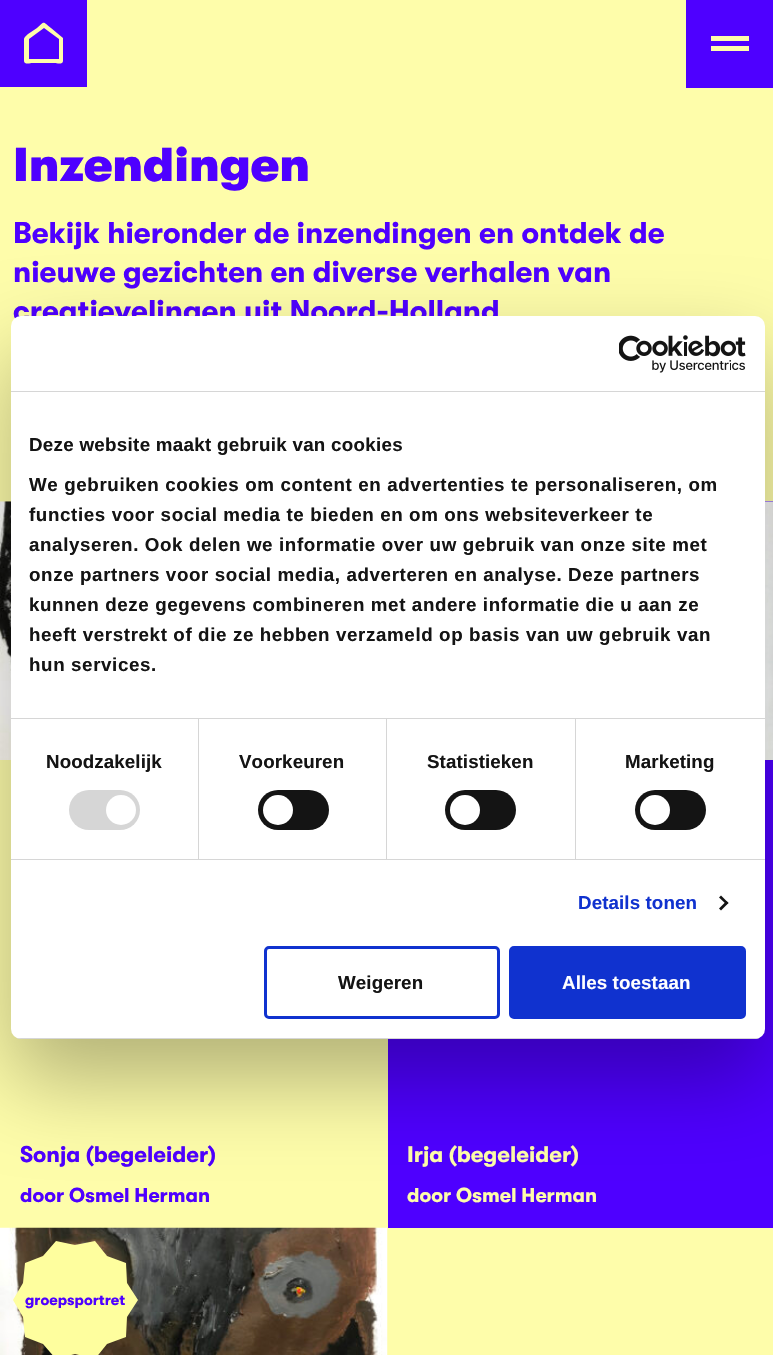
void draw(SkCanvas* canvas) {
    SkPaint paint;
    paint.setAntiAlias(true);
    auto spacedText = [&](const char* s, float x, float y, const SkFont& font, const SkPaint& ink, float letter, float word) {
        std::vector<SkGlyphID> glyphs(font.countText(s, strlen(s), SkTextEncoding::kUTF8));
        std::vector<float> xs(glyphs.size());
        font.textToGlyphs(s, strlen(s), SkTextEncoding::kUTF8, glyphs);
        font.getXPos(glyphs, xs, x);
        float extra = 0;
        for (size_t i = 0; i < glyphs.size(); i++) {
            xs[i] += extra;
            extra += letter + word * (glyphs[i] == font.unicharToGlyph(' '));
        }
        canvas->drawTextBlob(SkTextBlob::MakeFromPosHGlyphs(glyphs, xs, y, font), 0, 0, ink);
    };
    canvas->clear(0xFFFEFDAA);
    paint.setColor(0xFF4E00FF);
    canvas->drawRect(SkRect::MakeXYWH(0, 0, 87, 87), paint);
    paint.setColor(0xFFFEFDAA);
    canvas->drawPath(SkPathBuilder().moveTo(63, 61).cubicTo(63, 65, 56, 63, 55, 63).lineTo(32, 63).cubicTo(31, 63, 24, 65, 24, 61).lineTo(24, 42).cubicTo(24, 37, 24, 38, 28, 34).lineTo(37, 28).cubicTo(45, 21, 42, 21, 51, 28).lineTo(63, 38).close().moveTo(59, 59).lineTo(59, 39).lineTo(44, 28).lineTo(29, 39).lineTo(29, 59).close().detach(), paint);
    paint.setColor(0xFF4E00FF);
    canvas->drawRect(SkRect::MakeXYWH(686, 0, 87, 88), paint);
    paint.setColor(0xFFFEFDAA);
    canvas->drawRect(SkRect::MakeXYWH(711, 36, 38, 5), paint);
    canvas->drawRect(SkRect::MakeXYWH(711, 46, 38, 5), paint);
    SkFont font1(fontMgr->matchFamilyStyle("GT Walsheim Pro", SkFontStyle(900, SkFontStyle::kNormal_Width, SkFontStyle::kUpright_Slant)), 47.5f);
    font1.setSubpixel(true);
    paint.setColor(0xFF4E00FF);
    canvas->drawString("Inzendingen", 13, 181, font1, paint);
    SkFont font2(fontMgr->matchFamilyStyle("GT Walsheim Pro", SkFontStyle::Bold()), 30);
    font2.setSubpixel(true);
    canvas->drawString("Bekijk hieronder de inzendingen en ontdek de", 13, 243, font2, paint);
    canvas->drawString("nieuwe gezichten en diverse verhalen van", 13, 282, font2, paint);
    canvas->drawString("creatievelingen uit Noord-Holland", 13, 321, font2, paint);
    canvas->drawImageRect(SkImages::DeferredFromEncodedData(SkData::MakeFromFileName("img1.png")), SkRect::MakeXYWH(0, 501, 11, 259), SkSamplingOptions());
    canvas->drawRect(SkRect::MakeXYWH(765, 501, 8, 364), paint);
    canvas->drawImageRect(SkImages::DeferredFromEncodedData(SkData::MakeFromFileName("img2.png")), SkRect::MakeXYWH(765, 501, 8, 259), SkSamplingOptions());
    SkFont font3(fontMgr->matchFamilyStyle("GT Walsheim Pro", SkFontStyle::Bold()), 22.5f);
    font3.setSubpixel(true);
    canvas->drawString("Sonja (begeleider)", 20, 1162, font3, paint);
    SkFont font4(fontMgr->matchFamilyStyle("GT Walsheim Pro", SkFontStyle::Bold()), 20);
    font4.setSubpixel(true);
    canvas->drawString("door Osmel Herman", 20, 1202, font4, paint);
    canvas->drawRect(SkRect::MakeXYWH(388, 865, 385, 363), paint);
    paint.setColor(0xFFFEFDAA);
    canvas->drawString("Irja (begeleider)", 407, 1162, font3, paint);
    canvas->drawString("door Osmel Herman", 407, 1202, font4, paint);
    canvas->drawImageRect(SkImages::DeferredFromEncodedData(SkData::MakeFromFileName("img3.png")), SkRect::MakeXYWH(0, 1227, 388, 128), SkSamplingOptions());
    paint.setColor(0xFFFEFE9E);
    canvas->drawPath(SkPathBuilder().moveTo(138, 1300).lineTo(127, 1317).lineTo(126, 1337).lineTo(107, 1344).lineTo(95, 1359).lineTo(75, 1354).lineTo(56, 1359).lineTo(43, 1344).lineTo(25, 1337).lineTo(23, 1317).lineTo(13, 1300).lineTo(23, 1283).lineTo(25, 1263).lineTo(43, 1256).lineTo(56, 1241).lineTo(75, 1245).lineTo(95, 1241).lineTo(107, 1256).lineTo(126, 1263).lineTo(127, 1283).close().detach(), paint);
    SkFont font5(fontMgr->matchFamilyStyle("GT Walsheim Pro", SkFontStyle::Bold()), 15);
    font5.setSubpixel(true);
    paint.setColor(0xFF4E00FF);
    canvas->drawString("groepsportret", 25, 1305, font5, paint);
    paint.setColor(0x4D000000);
    paint.setMaskFilter(SkMaskFilter::MakeBlur(kNormal_SkBlurStyle, 42.5f));
    canvas->drawRoundRect(SkRect::MakeXYWH(11, 356, 754, 723), 10, 10, paint);
    paint.setMaskFilter(nullptr);
    paint.setColor(0xFFFFFFFF);
    canvas->drawRoundRect(SkRect::MakeXYWH(11, 316, 754, 723), 10, 10, paint);
    paint.setColor(0xFFD6D6D6);
    canvas->drawRect(SkRect::MakeXYWH(11, 391, 754, 1), paint);
    canvas->drawImageRect(SkImages::DeferredFromEncodedData(SkData::MakeFromFileName("img4.png")), SkRect::MakeXYWH(619, 335, 127, 38), SkSamplingOptions());
    canvas->drawRect(SkRect::MakeXYWH(11, 718, 754, 1), paint);
    SkFont font6(fontMgr->matchFamilyStyle("Liberation Sans", SkFontStyle::Bold()), 18.75f);
    font6.setSubpixel(true);
    paint.setColor(0xFF141414);
    spacedText("Deze website maakt gebruik van cookies", 29, 451, font6, paint, 0.3f, 0);
    spacedText("We gebruiken cookies om content en advertenties te personaliseren, om", 29, 491, font6, paint, 0.62f, 0);
    spacedText("functies voor social media te bieden en om ons websiteverkeer te", 29, 521, font6, paint, 0.62f, 0);
    spacedText("analyseren. Ook delen we informatie over uw gebruik van onze site met", 29, 551, font6, paint, 0.62f, 0);
    spacedText("onze partners voor social media, adverteren en analyse. Deze partners", 29, 581, font6, paint, 0.62f, 0);
    spacedText("kunnen deze gegevens combineren met andere informatie die u aan ze", 29, 611, font6, paint, 0.62f, 0);
    spacedText("heeft verstrekt of die ze hebben verzameld op basis van uw gebruik van", 29, 641, font6, paint, 0.62f, 0);
    spacedText("hun services.", 29, 671, font6, paint, 0.62f, 0);
    paint.setColor(0xFFD6D6D6);
    canvas->drawRect(SkRect::MakeXYWH(11, 859, 754, 1), paint);
    canvas->drawRect(SkRect::MakeXYWH(198, 719, 1, 140), paint);
    paint.setColor(0xFF141414);
    spacedText("Noodzakelijk", 46, 768, font6, paint, 0.1f, 0);
    paint.setColor(0xFFD6D6D6);
    canvas->drawRoundRect(SkRect::MakeXYWH(69, 790, 71, 40), 20, 20, paint);
    paint.setColor(0xFFFFFFFF);
    canvas->drawCircle(121, 810, 15, paint);
    paint.setColor(0xFFD6D6D6);
    canvas->drawRect(SkRect::MakeXYWH(386, 719, 1, 140), paint);
    paint.setColor(0xFF141414);
    spacedText("Voorkeuren", 239, 768, font6, paint, 0.1f, 0);
    canvas->drawRoundRect(SkRect::MakeXYWH(258, 790, 71, 40), 20, 20, paint);
    paint.setColor(0xFFFFFFFF);
    canvas->drawCircle(278, 810, 15, paint);
    paint.setColor(0xFFD6D6D6);
    canvas->drawRect(SkRect::MakeXYWH(575, 719, 1, 140), paint);
    paint.setColor(0xFF141414);
    spacedText("Statistieken", 427, 768, font6, paint, 0.1f, 0);
    canvas->drawRoundRect(SkRect::MakeXYWH(445, 790, 71, 40), 20, 20, paint);
    paint.setColor(0xFFFFFFFF);
    canvas->drawCircle(465, 810, 15, paint);
    paint.setColor(0xFF141414);
    spacedText("Marketing", 625, 768, font6, paint, 0.1f, 0);
    canvas->drawRoundRect(SkRect::MakeXYWH(635, 790, 71, 40), 20, 20, paint);
    paint.setColor(0xFFFFFFFF);
    canvas->drawCircle(655, 810, 15, paint);
    paint.setColor(0xFF1032CF);
    spacedText("Details tonen", 578, 909, font6, paint, 0.1f, 0);
    paint.setColor(0xFF141414);
    canvas->drawPath(SkPathBuilder().moveTo(721, 895.5f).lineTo(728.5f, 903).lineTo(726.5f, 904.5f).lineTo(719, 897.5f).close().detach(), paint);
    canvas->drawPath(SkPathBuilder().moveTo(726.5f, 901).lineTo(728.5f, 903).lineTo(721, 910.5f).lineTo(719, 908.5f).close().detach(), paint);
    canvas->save();
    canvas->clipPath(SkPathBuilder().moveTo(21, 316).lineTo(755, 316).cubicTo(760.5f, 316, 765, 320.5f, 765, 326).lineTo(765, 1029).cubicTo(765, 1034.5f, 760.5f, 1039, 755, 1039).lineTo(21, 1039).cubicTo(15.5f, 1039, 11, 1034.5f, 11, 1029).lineTo(11, 326).cubicTo(11, 320.5f, 15.5f, 316, 21, 316).close().detach(), true);
    paint.setColor(0xFFD6D6D6);
    canvas->drawRect(SkRect::MakeXYWH(11, 1038, 754, 1), paint);
    canvas->restore();
    paint.setStyle(SkPaint::kStroke_Style);
    paint.setStrokeWidth(3);
    paint.setColor(0xFF1032CF);
    canvas->drawRoundRect(SkRect::MakeXYWH(265.5f, 947.5f, 233, 70), 3.5f, 3.5f, paint);
    paint.setStyle(SkPaint::kFill_Style);
    paint.setColor(0xFF141414);
    spacedText("Weigeren", 338, 989, font6, paint, 0.1f, 0);
    paint.setColor(0xFF1032CF);
    canvas->drawRoundRect(SkRect::MakeXYWH(510.5f, 947.5f, 234, 70), 3.5f, 3.5f, paint);
    paint.setStyle(SkPaint::kStroke_Style);
    canvas->drawRoundRect(SkRect::MakeXYWH(510.5f, 947.5f, 234, 70), 3.5f, 3.5f, paint);
    paint.setStyle(SkPaint::kFill_Style);
    paint.setColor(0xFFFFFFFF);
    spacedText("Alles toestaan", 562, 989, font6, paint, 0.1f, 0);
}
